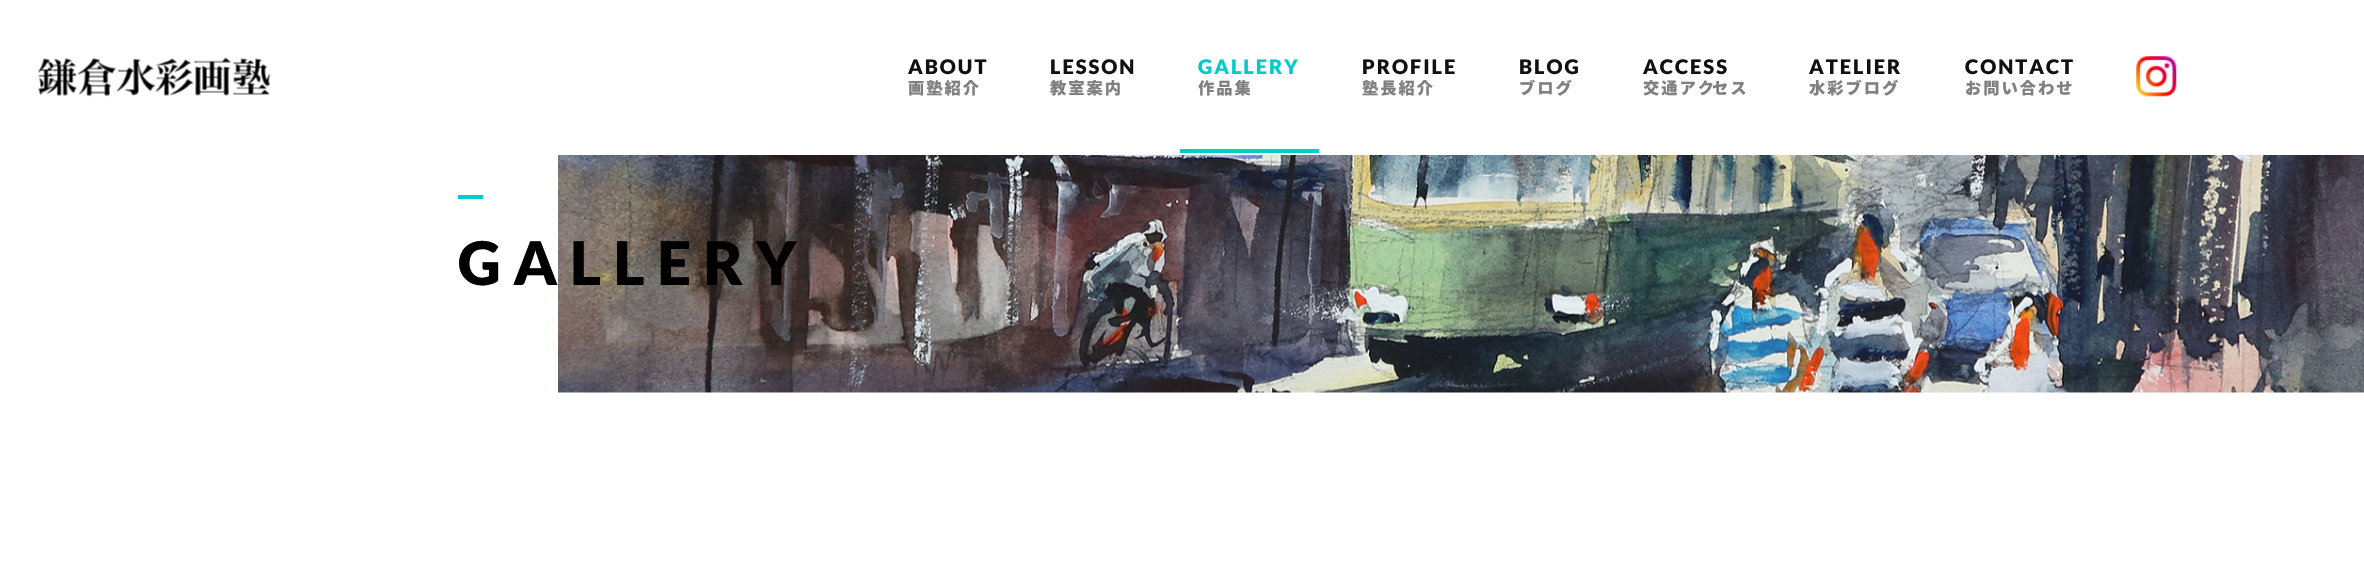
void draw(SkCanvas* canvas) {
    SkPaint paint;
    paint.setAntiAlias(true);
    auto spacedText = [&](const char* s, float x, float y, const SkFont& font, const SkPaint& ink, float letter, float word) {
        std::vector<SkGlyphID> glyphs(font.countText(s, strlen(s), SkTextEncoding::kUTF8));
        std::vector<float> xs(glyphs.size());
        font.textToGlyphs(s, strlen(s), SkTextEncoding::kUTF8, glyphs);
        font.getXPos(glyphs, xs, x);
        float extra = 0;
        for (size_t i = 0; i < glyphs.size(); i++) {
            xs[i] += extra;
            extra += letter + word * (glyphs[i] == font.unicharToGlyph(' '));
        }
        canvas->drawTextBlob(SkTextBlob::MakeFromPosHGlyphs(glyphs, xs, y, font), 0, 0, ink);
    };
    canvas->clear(0xFFFFFFFF);
    canvas->drawImageRect(SkImages::DeferredFromEncodedData(SkData::MakeFromFileName("img1.png")), SkRect::MakeXYWH(38, 57, 233, 40), SkSamplingOptions());
    SkFont font1(fontMgr->matchFamilyStyle("Lato", SkFontStyle(900, SkFontStyle::kNormal_Width, SkFontStyle::kUpright_Slant)), 20);
    font1.setSubpixel(true);
    paint.setColor(0xFF111111);
    spacedText("ABOUT", 908, 74, font1, paint, 2, 0);
    SkFont font2(fontMgr->matchFamilyStyle("Noto Sans JP", SkFontStyle(900, SkFontStyle::kNormal_Width, SkFontStyle::kUpright_Slant)), 16.25f);
    font2.setSubpixel(true);
    paint.setColor(0xFF808080);
    spacedText("画塾紹介", 908, 94, font2, paint, 2, 0);
    paint.setColor(0xFF111111);
    spacedText("LESSON", 1050, 74, font1, paint, 2, 0);
    paint.setColor(0xFF808080);
    spacedText("教室案内", 1050, 94, font2, paint, 2, 0);
    paint.setColor(0xFF00CCCC);
    spacedText("GALLERY", 1198, 74, font1, paint, 2, 0);
    paint.setColor(0xFF808080);
    spacedText("作品集", 1198, 94, font2, paint, 2, 0);
    paint.setColor(0xFF00CCCC);
    canvas->drawRect(SkRect::MakeXYWH(1180, 149, 139, 4), paint);
    paint.setColor(0xFF111111);
    spacedText("PROFILE", 1362, 74, font1, paint, 2, 0);
    paint.setColor(0xFF808080);
    spacedText("塾長紹介", 1362, 94, font2, paint, 2, 0);
    paint.setColor(0xFF111111);
    spacedText("BLOG", 1519, 74, font1, paint, 2, 0);
    paint.setColor(0xFF808080);
    spacedText("ブログ", 1519, 94, font2, paint, 2, 0);
    paint.setColor(0xFF111111);
    spacedText("ACCESS", 1643, 74, font1, paint, 2, 0);
    paint.setColor(0xFF808080);
    spacedText("交通アク", 1643, 94, font2, paint, 2, 0);
    spacedText("セス", 1712, 94, font2, paint, 2, 0);
    paint.setColor(0xFF111111);
    spacedText("ATELIER", 1809, 74, font1, paint, 2, 0);
    paint.setColor(0xFF808080);
    spacedText("水彩ブログ", 1809, 94, font2, paint, 2, 0);
    paint.setColor(0xFF111111);
    spacedText("CONTACT", 1965, 74, font1, paint, 2, 0);
    paint.setColor(0xFF808080);
    spacedText("お問い合わせ", 1965, 94, font2, paint, 2, 0);
    canvas->drawImageRect(SkImages::DeferredFromEncodedData(SkData::MakeFromFileName("img2.png")), SkRect::MakeXYWH(2136, 56, 41, 41), SkSamplingOptions());
    canvas->drawImageRect(SkImages::DeferredFromEncodedData(SkData::MakeFromFileName("img3.png")), SkRect::MakeXYWH(558, 155, 1806, 238), SkSamplingOptions());
    paint.setColor(0xFF00CCCC);
    canvas->drawRect(SkRect::MakeXYWH(458, 195, 25, 4), paint);
    SkFont font3(fontMgr->matchFamilyStyle("Lato", SkFontStyle(900, SkFontStyle::kNormal_Width, SkFontStyle::kUpright_Slant)), 60);
    font3.setSubpixel(true);
    paint.setColor(0xFF000000);
    spacedText("GALLERY", 458, 285, font3, paint, 12.5f, 0);
}
